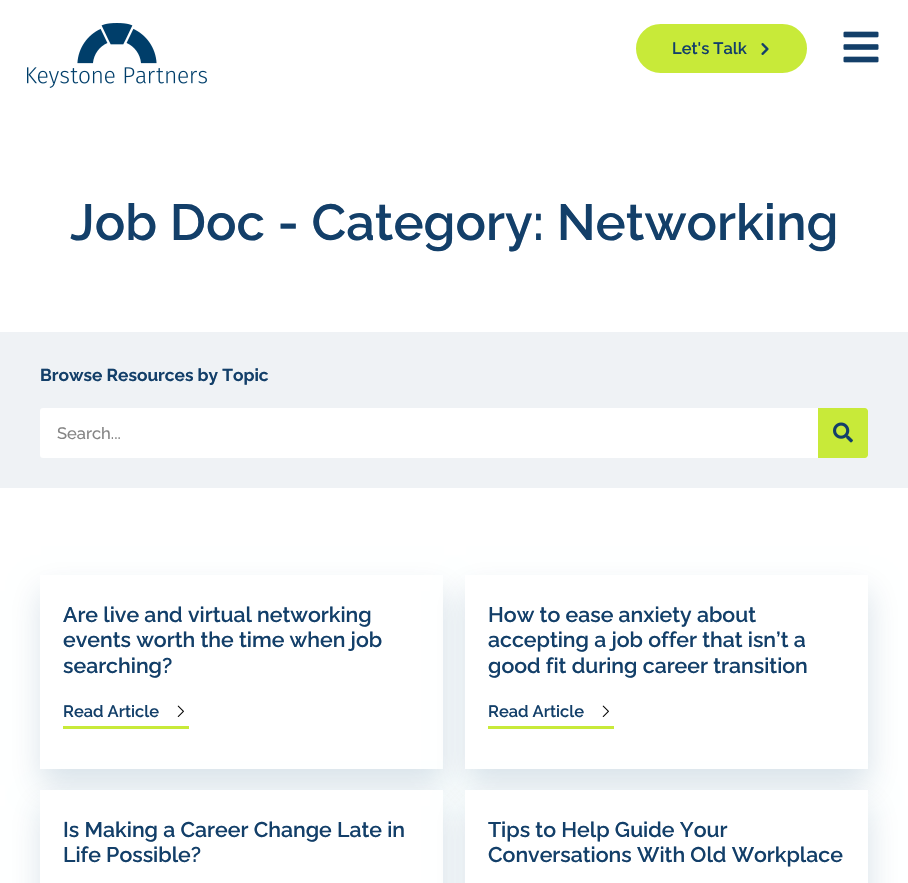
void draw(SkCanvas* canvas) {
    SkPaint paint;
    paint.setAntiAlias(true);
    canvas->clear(0xFFFFFFFF);
    canvas->drawImageRect(SkImages::DeferredFromEncodedData(SkData::MakeFromFileName("img1.png")), SkRect::MakeXYWH(27, 23, 180, 65), SkSamplingOptions());
    paint.setColor(0xFFC8EA39);
    canvas->drawRoundRect(SkRect::MakeXYWH(638, 26, 167, 45), 22.5f, 22.5f, paint);
    paint.setStyle(SkPaint::kStroke_Style);
    paint.setStrokeWidth(4);
    canvas->drawRoundRect(SkRect::MakeXYWH(638, 26, 167, 45), 22.5f, 22.5f, paint);
    SkFont font1(fontMgr->matchFamilyStyle("Raleway", SkFontStyle(600, SkFontStyle::kNormal_Width, SkFontStyle::kUpright_Slant)), 16.5f);
    font1.setSubpixel(true);
    paint.setStyle(SkPaint::kFill_Style);
    paint.setColor(0xFF133F69);
    canvas->drawString("Let's Talk", 672, 54, font1, paint);
    canvas->drawImageRect(SkImages::DeferredFromEncodedData(SkData::MakeFromFileName("img2.png")), SkRect::MakeXYWH(761, 43, 8, 12), SkSamplingOptions());
    canvas->drawImageRect(SkImages::DeferredFromEncodedData(SkData::MakeFromFileName("img3.png")), SkRect::MakeXYWH(843, 31, 36, 32), SkSamplingOptions());
    SkFont font2(fontMgr->matchFamilyStyle("Raleway", SkFontStyle(600, SkFontStyle::kNormal_Width, SkFontStyle::kUpright_Slant)), 50.75f);
    font2.setSubpixel(true);
    canvas->drawString("Job Doc - Category: Networking", 70, 240, font2, paint);
    paint.setColor(0xFFEFF2F5);
    canvas->drawRect(SkRect::MakeXYWH(0, 332, 908, 156), paint);
    SkFont font3(fontMgr->matchFamilyStyle("Raleway", SkFontStyle::Bold()), 17.3f);
    font3.setSubpixel(true);
    paint.setColor(0xFF133F69);
    canvas->drawString("Browse Resources by Topic", 40, 381, font3, paint);
    paint.setColor(0xFFFFFFFF);
    canvas->drawRoundRect(SkRect::MakeXYWH(40, 408, 828, 50), 3, 3, paint);
    SkFont font4(fontMgr->matchFamilyStyle("Raleway", SkFontStyle(500, SkFontStyle::kNormal_Width, SkFontStyle::kUpright_Slant)), 16.5f);
    font4.setSubpixel(true);
    paint.setColor(0xFF858585);
    canvas->drawString("Search...", 57, 439, font4, paint);
    paint.setColor(0xFFC8EA39);
    canvas->drawPath(SkPathBuilder().moveTo(818, 408).lineTo(865, 408).cubicTo(866.5f, 408, 868, 409.5f, 868, 411).lineTo(868, 455).cubicTo(868, 456.5f, 866.5f, 458, 865, 458).lineTo(818, 458).close().detach(), paint);
    canvas->drawImageRect(SkImages::DeferredFromEncodedData(SkData::MakeFromFileName("img4.png")), SkRect::MakeXYWH(833, 422, 20, 21), SkSamplingOptions());
    canvas->save();
    canvas->clipPath(SkPathBuilder(SkPathFillType::kEvenOdd).moveTo(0, 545).lineTo(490, 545).lineTo(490, 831).lineTo(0, 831).close().moveTo(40, 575).lineTo(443, 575).lineTo(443, 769).lineTo(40, 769).close().detach(), true);
    paint.setColor(0x26003E6A);
    paint.setMaskFilter(SkMaskFilter::MakeBlur(kNormal_SkBlurStyle, 15));
    canvas->drawRect(SkRect::MakeXYWH(41, 591, 403, 194), paint);
    paint.setMaskFilter(nullptr);
    canvas->restore();
    SkFont font5(fontMgr->matchFamilyStyle("Raleway", SkFontStyle(600, SkFontStyle::kNormal_Width, SkFontStyle::kUpright_Slant)), 21.3f);
    font5.setSubpixel(true);
    paint.setColor(0xFF133F69);
    canvas->drawString("Are live and virtual networking", 63, 622, font5, paint);
    canvas->drawString("events worth the time when job", 63, 647, font5, paint);
    canvas->drawString("searching?", 63, 673, font5, paint);
    paint.setColor(0xFFC8EA39);
    canvas->drawRect(SkRect::MakeXYWH(63, 726, 126, 3), paint);
    paint.setColor(0xFF133F69);
    canvas->drawString("Read Article", 63, 717, font1, paint);
    canvas->drawImageRect(SkImages::DeferredFromEncodedData(SkData::MakeFromFileName("img5.png")), SkRect::MakeXYWH(177, 705, 7, 12), SkSamplingOptions());
    paint.setColor(0x26003E6A);
    paint.setMaskFilter(SkMaskFilter::MakeBlur(kNormal_SkBlurStyle, 15));
    canvas->drawRect(SkRect::MakeXYWH(466, 591, 403, 194), paint);
    paint.setMaskFilter(nullptr);
    paint.setColor(0xFFFFFFFF);
    canvas->drawRect(SkRect::MakeXYWH(465, 575, 403, 194), paint);
    paint.setColor(0xFF133F69);
    canvas->drawString("How to ease anxiety about", 488, 622, font5, paint);
    canvas->drawString("accepting a job offer that isn’t a", 488, 647, font5, paint);
    canvas->drawString("good fit during career transition", 488, 673, font5, paint);
    paint.setColor(0xFFC8EA39);
    canvas->drawRect(SkRect::MakeXYWH(488, 726, 126, 3), paint);
    paint.setColor(0xFF133F69);
    canvas->drawString("Read Article", 488, 717, font1, paint);
    canvas->drawImageRect(SkImages::DeferredFromEncodedData(SkData::MakeFromFileName("img5.png")), SkRect::MakeXYWH(602, 705, 7, 12), SkSamplingOptions());
    paint.setColor(0x26003E6A);
    paint.setMaskFilter(SkMaskFilter::MakeBlur(kNormal_SkBlurStyle, 15));
    canvas->drawRect(SkRect::MakeXYWH(41, 806, 403, 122), paint);
    paint.setMaskFilter(nullptr);
    paint.setColor(0xFFFFFFFF);
    canvas->drawRect(SkRect::MakeXYWH(40, 790, 403, 93), paint);
    paint.setColor(0xFF133F69);
    canvas->drawString("Is Making a Career Change Late in", 63, 837, font5, paint);
    canvas->drawString("Life Possible?", 63, 862, font5, paint);
    paint.setColor(0x26003E6A);
    paint.setMaskFilter(SkMaskFilter::MakeBlur(kNormal_SkBlurStyle, 15));
    canvas->drawRect(SkRect::MakeXYWH(466, 806, 403, 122), paint);
    paint.setMaskFilter(nullptr);
    paint.setColor(0xFFFFFFFF);
    canvas->drawRect(SkRect::MakeXYWH(465, 790, 403, 93), paint);
    paint.setColor(0xFF133F69);
    canvas->drawString("Tips to Help Guide Your", 488, 837, font5, paint);
    canvas->drawString("Conversations With Old Workplace", 488, 862, font5, paint);
}
